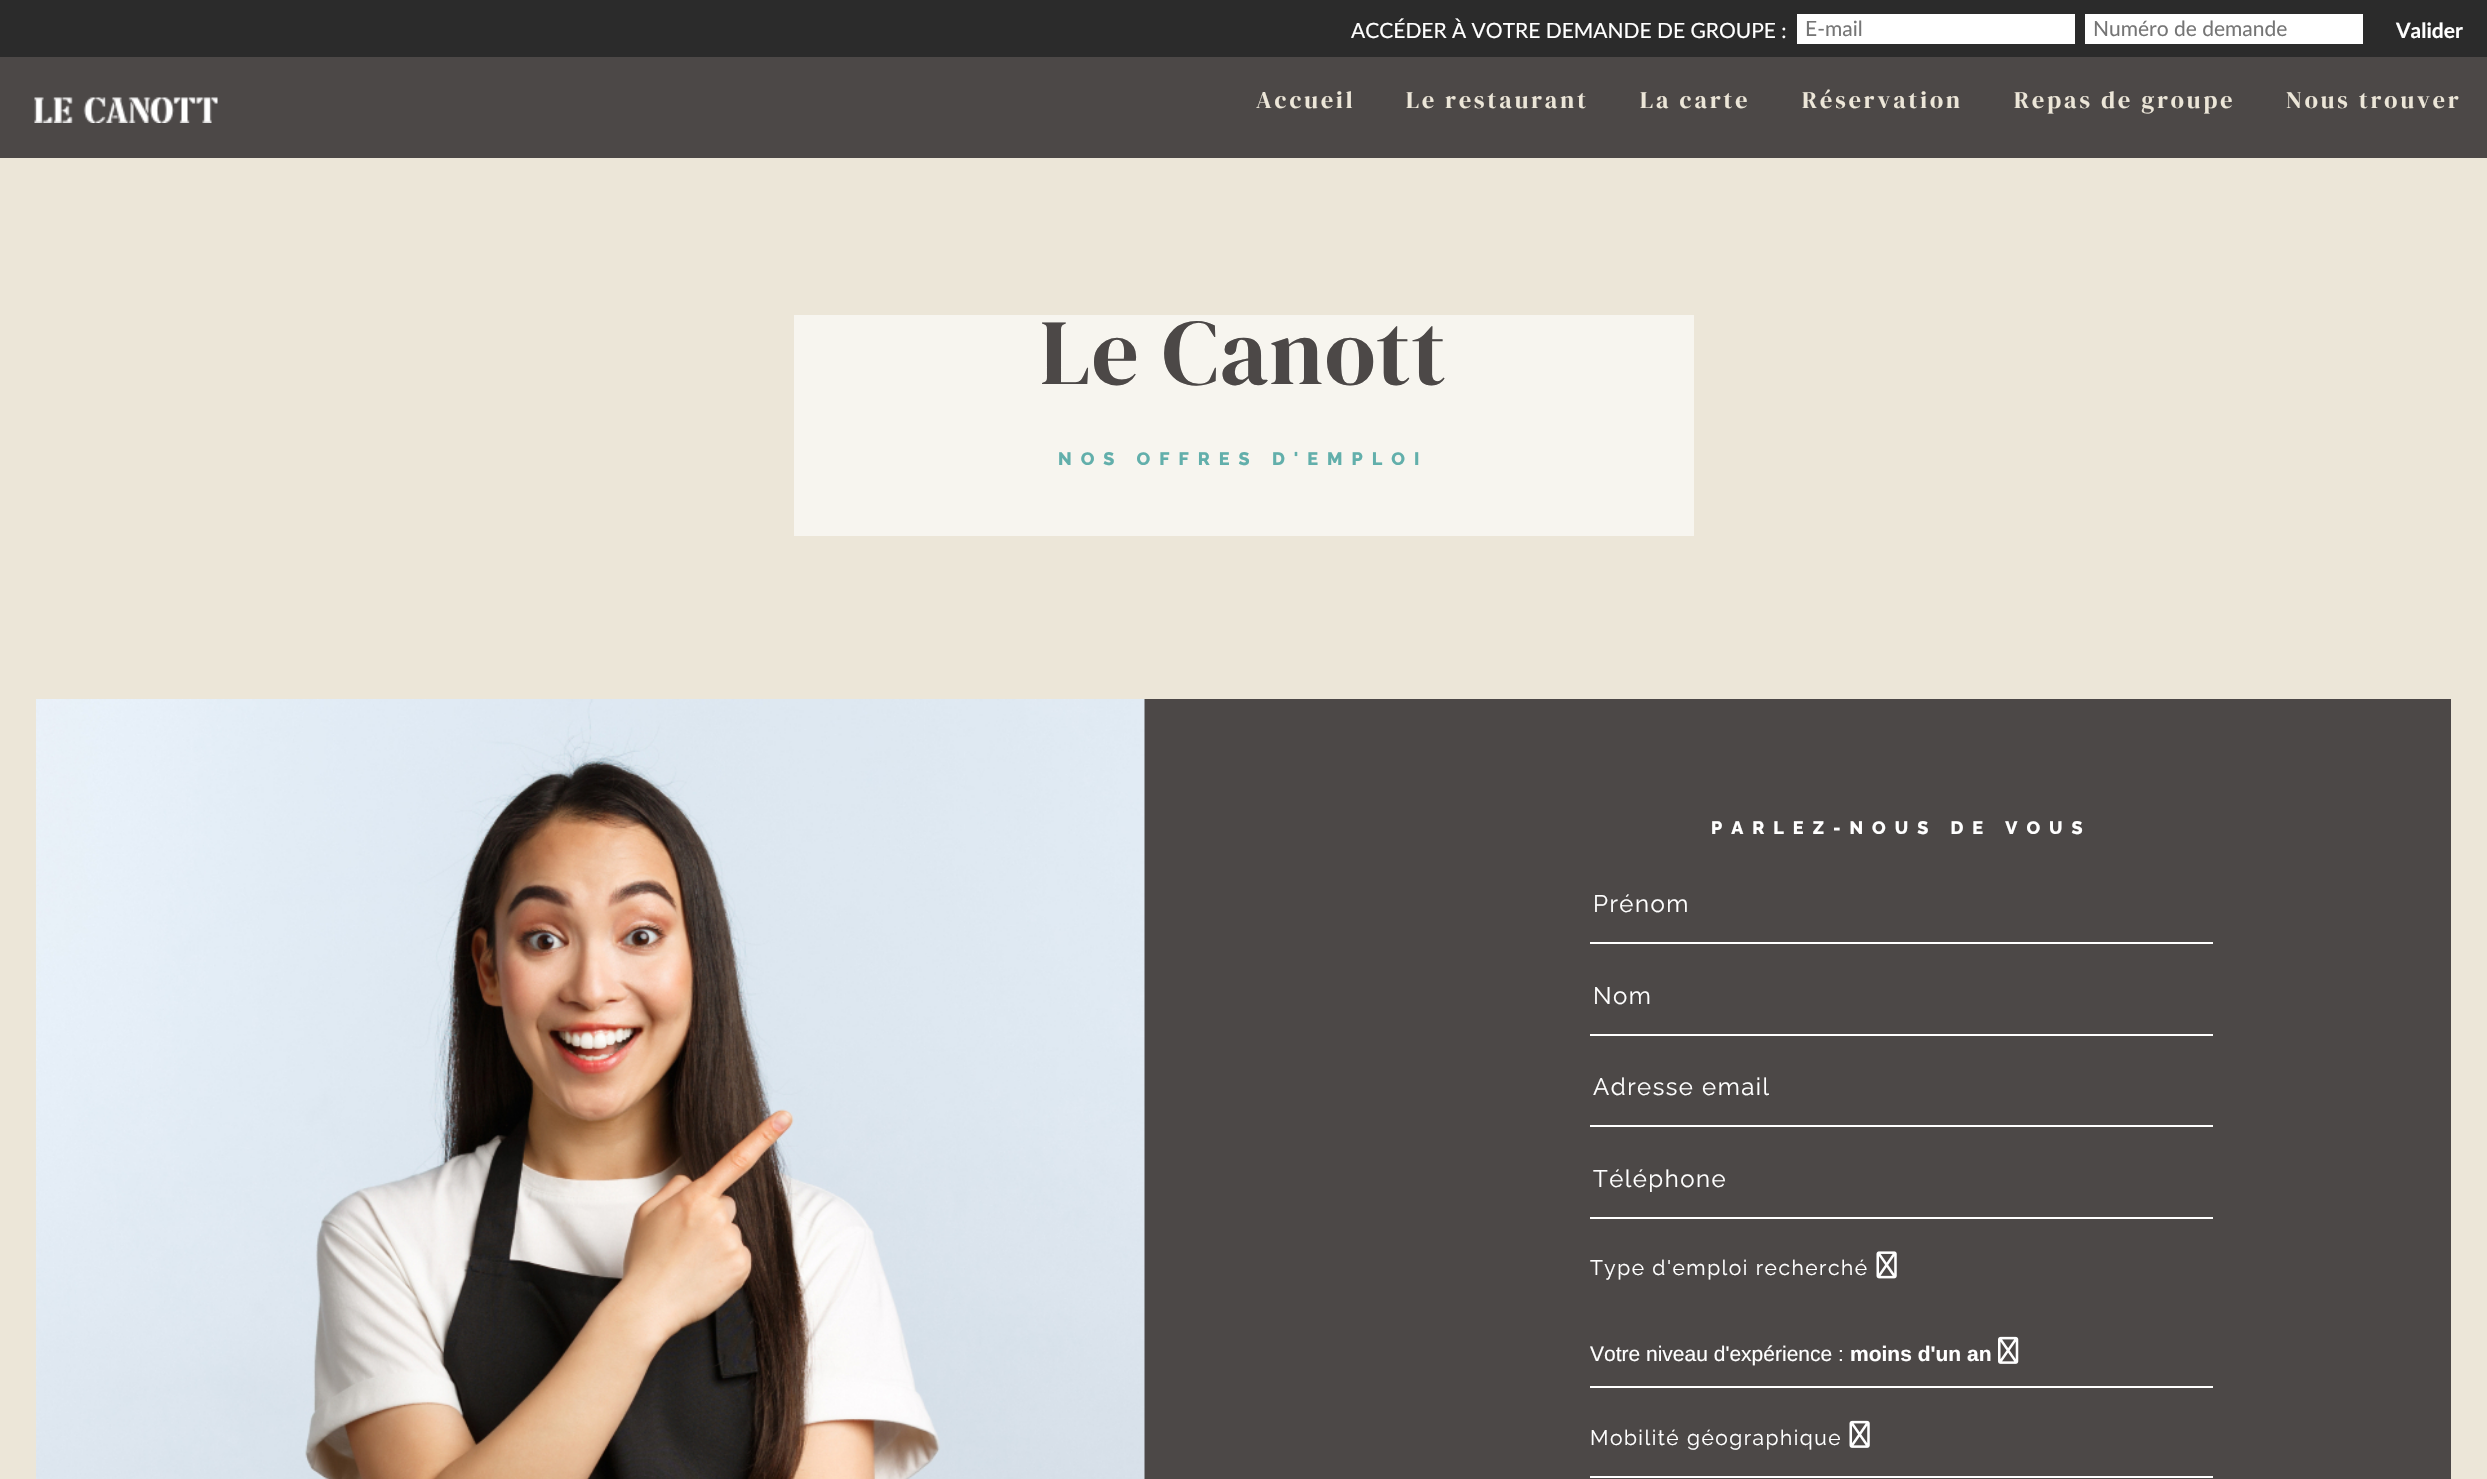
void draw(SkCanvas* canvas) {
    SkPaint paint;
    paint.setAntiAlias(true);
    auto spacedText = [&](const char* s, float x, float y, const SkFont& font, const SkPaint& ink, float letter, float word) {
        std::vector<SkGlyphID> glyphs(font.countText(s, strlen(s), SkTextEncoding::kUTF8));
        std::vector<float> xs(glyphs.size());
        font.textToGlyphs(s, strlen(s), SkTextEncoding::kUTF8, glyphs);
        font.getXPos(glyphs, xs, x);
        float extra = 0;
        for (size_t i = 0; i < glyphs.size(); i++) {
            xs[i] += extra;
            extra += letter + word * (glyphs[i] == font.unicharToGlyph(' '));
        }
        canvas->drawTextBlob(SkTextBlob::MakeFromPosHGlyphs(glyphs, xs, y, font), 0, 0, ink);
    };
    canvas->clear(0xFFECE6D8);
    paint.setColor(0xFF2B2B2B);
    canvas->drawRect(SkRect::MakeXYWH(0, 0, 2487, 57), paint);
    SkFont font1(fontMgr->matchFamilyStyle("Lato", SkFontStyle::Normal()), 21);
    font1.setSubpixel(true);
    paint.setColor(0xFFFFFFFF);
    canvas->drawString("ACCÉDER À VOTRE DEMANDE DE GROUPE :", 1351, 38, font1, paint);
    canvas->drawRect(SkRect::MakeXYWH(1797, 14, 278, 30), paint);
    paint.setColor(0xFF757575);
    canvas->drawString("E-mail", 1805, 36, font1, paint);
    paint.setColor(0xFFFFFFFF);
    canvas->drawRect(SkRect::MakeXYWH(2085, 14, 278, 30), paint);
    paint.setColor(0xFF757575);
    canvas->drawString("Numéro de demande", 2093, 36, font1, paint);
    SkFont font2(fontMgr->matchFamilyStyle("Lato", SkFontStyle::Bold()), 21);
    font2.setSubpixel(true);
    paint.setColor(0xFFFFFFFF);
    canvas->drawString("Valider", 2396, 38, font2, paint);
    paint.setColor(0xFF4C4847);
    canvas->drawRect(SkRect::MakeXYWH(0, 57, 2487, 101), paint);
    canvas->drawImageRect(SkImages::DeferredFromEncodedData(SkData::MakeFromFileName("img1.png")), SkRect::MakeXYWH(34, 97, 184, 26), SkSamplingOptions());
    SkFont font3(fontMgr->matchFamilyStyle("DM Serif Display", SkFontStyle::Normal()), 24);
    font3.setSubpixel(true);
    paint.setColor(0xFFECE6D8);
    spacedText("Accueil", 1256, 108, font3, paint, 3, 0);
    spacedText("Le restaurant", 1406, 108, font3, paint, 3, 0);
    spacedText("La carte", 1640, 108, font3, paint, 3, 0);
    spacedText("Réservation", 1802, 108, font3, paint, 3, 0);
    spacedText("Repas de groupe", 2014, 108, font3, paint, 3, 0);
    spacedText("Nous trouver", 2286, 108, font3, paint, 3, 0);
    paint.setColor(0xFFF7F5EF);
    canvas->drawRect(SkRect::MakeXYWH(794, 315, 900, 221), paint);
    SkFont font4(fontMgr->matchFamilyStyle("DM Serif Display", SkFontStyle::Normal()), 93);
    font4.setSubpixel(true);
    paint.setColor(0xFF4C4847);
    spacedText("Le Canott", 1040, 384, font4, paint, 1.5f, 0);
    SkFont font5(fontMgr->matchFamilyStyle("Raleway", SkFontStyle(800, SkFontStyle::kNormal_Width, SkFontStyle::kUpright_Slant)), 18);
    font5.setSubpixel(true);
    paint.setColor(0xFF62AFAB);
    spacedText("NOS OFFRES D'EMPLOI", 1058, 465, font5, paint, 9, 0);
    paint.setColor(0xFF4C4847);
    canvas->drawRect(SkRect::MakeXYWH(1144, 699, 1307, 780), paint);
    canvas->drawImageRect(SkImages::DeferredFromEncodedData(SkData::MakeFromFileName("img2.png")), SkRect::MakeXYWH(36, 699, 1109, 780), SkSamplingOptions());
    paint.setColor(0xFFFFFFFF);
    spacedText("PARLEZ-NOUS DE VOUS", 1711, 834, font5, paint, 9, 0);
    canvas->drawRect(SkRect::MakeXYWH(1590, 942, 623, 2), paint);
    SkFont font6(fontMgr->matchFamilyStyle("Raleway", SkFontStyle::Normal()), 24);
    font6.setSubpixel(true);
    spacedText("Prénom", 1593, 912, font6, paint, 1.5f, 0);
    canvas->drawRect(SkRect::MakeXYWH(1590, 1034, 623, 2), paint);
    spacedText("Nom", 1593, 1004, font6, paint, 1.5f, 0);
    canvas->drawRect(SkRect::MakeXYWH(1590, 1125, 623, 2), paint);
    spacedText("Adresse email", 1593, 1095, font6, paint, 1.5f, 0);
    canvas->drawRect(SkRect::MakeXYWH(1590, 1217, 623, 2), paint);
    spacedText("Téléphone", 1593, 1187, font6, paint, 1.5f, 0);
    SkFont font7(fontMgr->matchFamilyStyle("Raleway", SkFontStyle::Normal()), 21);
    font7.setSubpixel(true);
    spacedText("Type d'emploi recherché", 1590, 1275, font7, paint, 1.5f, 0);
    canvas->drawImageRect(SkImages::DeferredFromEncodedData(SkData::MakeFromFileName("img3.png")), SkRect::MakeXYWH(1876, 1251, 21, 28), SkSamplingOptions());
    canvas->drawRect(SkRect::MakeXYWH(1590, 1386, 623, 2), paint);
    SkFont font8(fontMgr->matchFamilyStyle("Liberation Sans", SkFontStyle::Normal()), 21);
    font8.setSubpixel(true);
    canvas->drawString("Votre niveau d'expérience :", 1590, 1361, font8, paint);
    SkFont font9(fontMgr->matchFamilyStyle("Liberation Sans", SkFontStyle::Bold()), 21);
    font9.setSubpixel(true);
    canvas->drawString("moins d'un an", 1850, 1361, font9, paint);
    canvas->drawImageRect(SkImages::DeferredFromEncodedData(SkData::MakeFromFileName("img4.png")), SkRect::MakeXYWH(1998, 1336, 21, 28), SkSamplingOptions());
    canvas->drawRect(SkRect::MakeXYWH(1590, 1476, 623, 2), paint);
    spacedText("Mobilité géographique", 1590, 1445, font7, paint, 1.5f, 0);
    canvas->drawImageRect(SkImages::DeferredFromEncodedData(SkData::MakeFromFileName("img5.png")), SkRect::MakeXYWH(1849, 1420, 21, 28), SkSamplingOptions());
}
